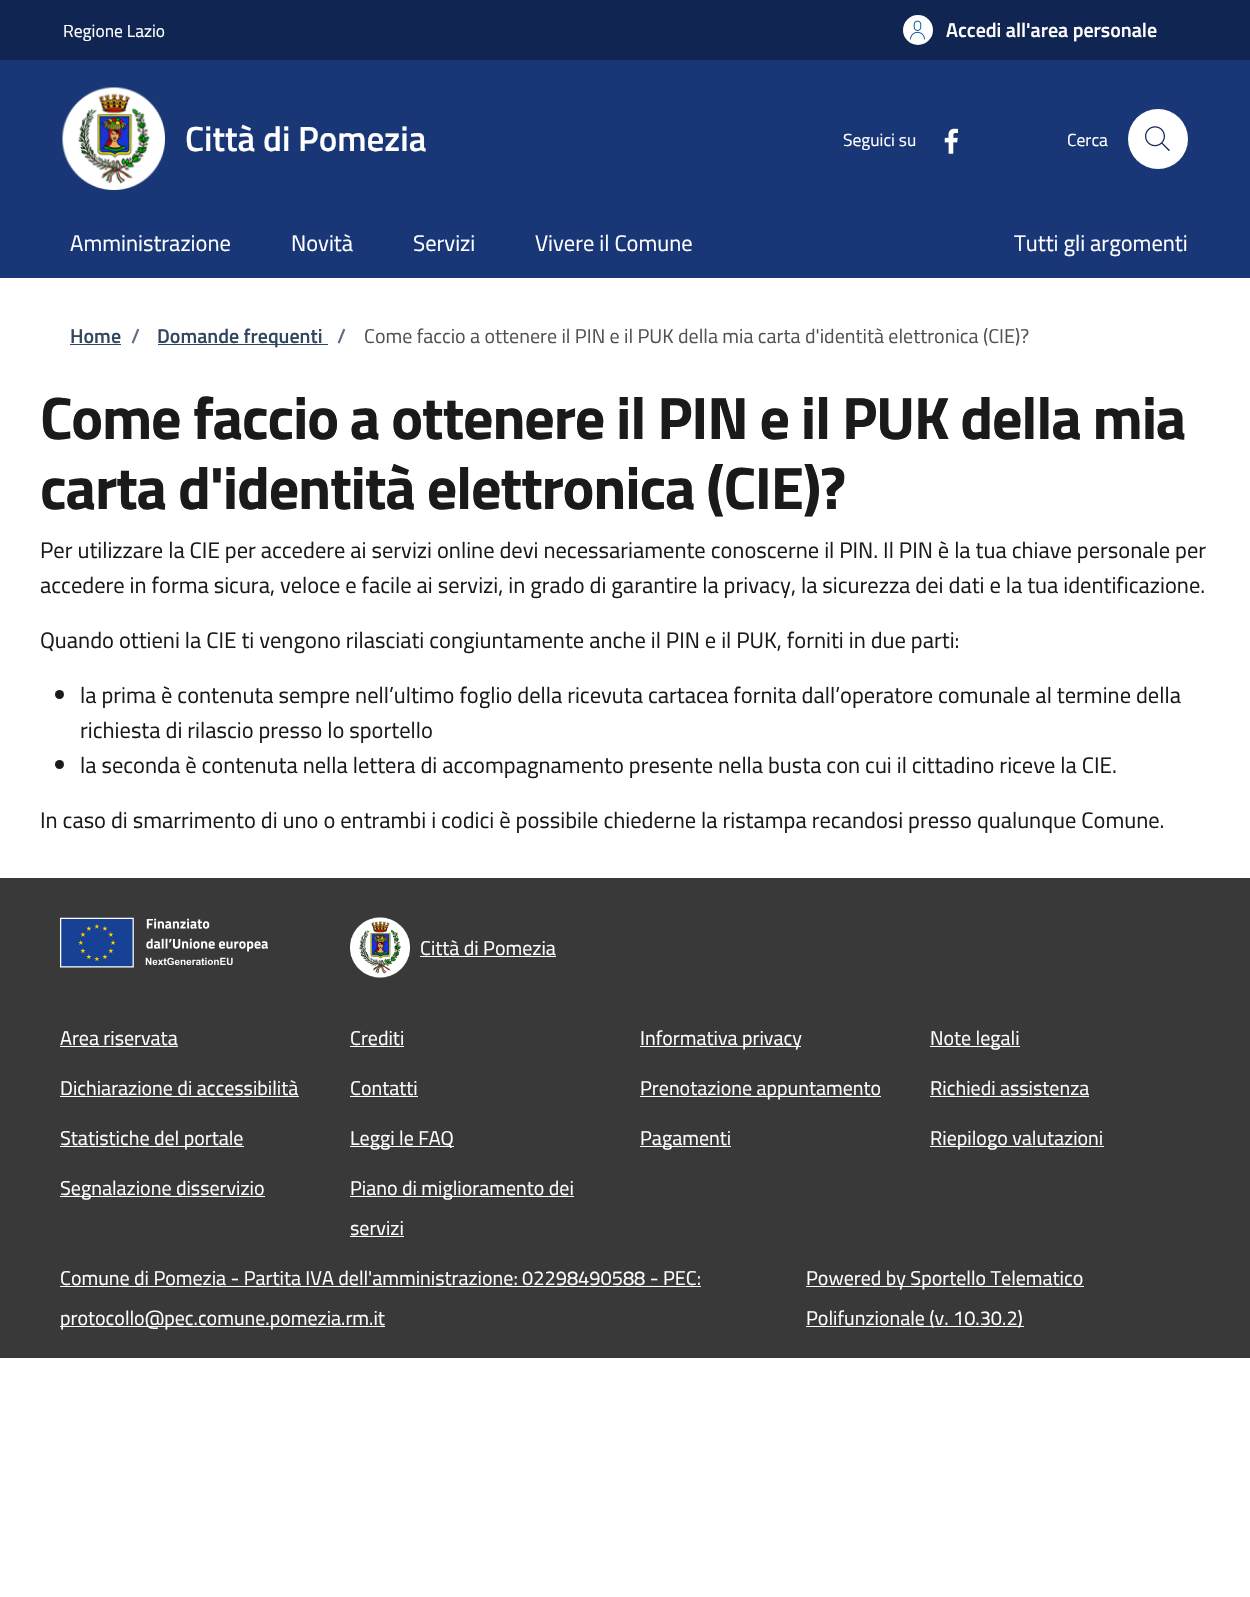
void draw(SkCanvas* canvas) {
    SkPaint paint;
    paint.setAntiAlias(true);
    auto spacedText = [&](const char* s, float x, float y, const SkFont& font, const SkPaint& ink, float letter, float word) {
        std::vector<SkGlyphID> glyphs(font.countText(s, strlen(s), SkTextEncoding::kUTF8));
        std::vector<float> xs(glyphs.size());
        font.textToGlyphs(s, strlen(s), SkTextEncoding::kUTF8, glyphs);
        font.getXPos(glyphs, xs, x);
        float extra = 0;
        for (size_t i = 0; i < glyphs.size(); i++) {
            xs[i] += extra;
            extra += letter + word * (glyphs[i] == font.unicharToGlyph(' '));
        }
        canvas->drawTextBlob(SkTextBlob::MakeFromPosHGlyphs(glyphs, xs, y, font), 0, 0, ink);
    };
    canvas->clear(0xFFFFFFFF);
    paint.setColor(0xFF112552);
    canvas->drawRect(SkRect::MakeXYWH(0, 0, 1250, 60), paint);
    SkFont font1(fontMgr->matchFamilyStyle("Titillium Web", SkFontStyle::Normal()), 17.5f);
    font1.setSubpixel(true);
    paint.setColor(0xFFFFFFFF);
    canvas->drawString("Regione Lazio", 63, 37, font1, paint);
    canvas->drawCircle(918, 30, 15, paint);
    canvas->drawImageRect(SkImages::DeferredFromEncodedData(SkData::MakeFromFileName("img1.png")), SkRect::MakeXYWH(910, 20, 15, 20), SkSamplingOptions());
    SkFont font2(fontMgr->matchFamilyStyle("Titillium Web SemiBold", SkFontStyle(600, SkFontStyle::kNormal_Width, SkFontStyle::kUpright_Slant)), 20);
    font2.setSubpixel(true);
    canvas->drawString("Accedi all'area personale", 946, 37, font2, paint);
    paint.setColor(0xFF193676);
    canvas->drawRect(SkRect::MakeXYWH(0, 60, 1250, 218), paint);
    canvas->drawImageRect(SkImages::DeferredFromEncodedData(SkData::MakeFromFileName("img2.png")), SkRect::MakeXYWH(62, 87, 103, 103), SkSamplingOptions());
    SkFont font3(fontMgr->matchFamilyStyle("Titillium Web SemiBold", SkFontStyle(600, SkFontStyle::kNormal_Width, SkFontStyle::kUpright_Slant)), 35);
    font3.setSubpixel(true);
    paint.setColor(0xFFFFFFFF);
    canvas->drawString("Città di Pomezia", 185, 151, font3, paint);
    canvas->drawString("Seguici su", 843, 146, font1, paint);
    canvas->drawImageRect(SkImages::DeferredFromEncodedData(SkData::MakeFromFileName("img3.png")), SkRect::MakeXYWH(944, 128, 14, 26), SkSamplingOptions());
    canvas->drawString("Cerca", 1067, 146, font1, paint);
    canvas->drawCircle(1158, 139, 30, paint);
    canvas->drawImageRect(SkImages::DeferredFromEncodedData(SkData::MakeFromFileName("img4.png")), SkRect::MakeXYWH(1145, 126, 25, 25), SkSamplingOptions());
    SkFont font4(fontMgr->matchFamilyStyle("Titillium Web", SkFontStyle::Normal()), 22.5f);
    font4.setSubpixel(true);
    canvas->drawString("Amministrazione", 70, 251, font4, paint);
    canvas->drawString("Novità", 291, 251, font4, paint);
    canvas->drawString("Servizi", 413, 251, font4, paint);
    canvas->drawString("Vivere il Comune", 535, 251, font4, paint);
    canvas->drawString("Tutti gli argomenti", 1014, 251, font4, paint);
    paint.setColor(0xFF30475F);
    canvas->drawString("Home", 70, 343, font2, paint);
    canvas->drawRect(SkRect::MakeXYWH(70, 344, 51, 1), paint);
    paint.setColor(0xFF5D7083);
    canvas->drawString("/", 131, 343, font2, paint);
    paint.setColor(0xFF30475F);
    canvas->drawRect(SkRect::MakeXYWH(158, 344, 170, 1), paint);
    canvas->drawString("Domande frequenti", 157, 343, font2, paint);
    paint.setColor(0xFF5D7083);
    canvas->drawString("/", 337, 343, font2, paint);
    SkFont font5(fontMgr->matchFamilyStyle("Titillium Web", SkFontStyle::Normal()), 20);
    font5.setSubpixel(true);
    paint.setColor(0xFF525252);
    canvas->drawString("Come faccio a ottenere il PIN e il PUK della mia carta d'identità elettronica (CIE)?", 364, 343, font5, paint);
    SkFont font6(fontMgr->matchFamilyStyle("Titillium Web", SkFontStyle::Bold()), 60);
    font6.setSubpixel(true);
    paint.setColor(0xFF1A1A1A);
    spacedText("Come faccio a ottenere il PIN e il PUK della mia", 40, 439, font6, paint, -1.25f, 0);
    spacedText("carta d'identità elettronica (CIE)?", 40, 509, font6, paint, -1.25f, 0);
    canvas->drawString("Per utilizzare la CIE per accedere ai servizi online devi necessariamente conoscerne il PIN. Il PIN è la tua chiave personale per", 40, 558, font4, paint);
    canvas->drawString("accedere in forma sicura, veloce e facile ai servizi, in grado di garantire la privacy, la sicurezza dei dati e la tua identificazione.", 40, 593, font4, paint);
    canvas->drawString("Quando ottieni la CIE ti vengono rilasciati congiuntamente anche il PIN e il PUK, forniti in due parti:", 40, 648, font4, paint);
    canvas->drawCircle(59.5f, 694.5f, 4.5f, paint);
    canvas->drawString("la prima è contenuta sempre nell’ultimo foglio della ricevuta cartacea fornita dall’operatore comunale al termine della", 80, 703, font4, paint);
    canvas->drawString("richiesta di rilascio presso lo sportello", 80, 738, font4, paint);
    canvas->drawCircle(59.5f, 764.5f, 4.5f, paint);
    canvas->drawString("la seconda è contenuta nella lettera di accompagnamento presente nella busta con cui il cittadino riceve la CIE.", 80, 773, font4, paint);
    canvas->drawString("In caso di smarrimento di uno o entrambi i codici è possibile chiederne la ristampa recandosi presso qualunque Comune.", 40, 828, font4, paint);
    paint.setColor(0xFF393939);
    canvas->drawRect(SkRect::MakeXYWH(0, 878, 1250, 480), paint);
    canvas->drawImageRect(SkImages::DeferredFromEncodedData(SkData::MakeFromFileName("img5.png")), SkRect::MakeXYWH(60, 917, 208, 51), SkSamplingOptions());
    canvas->drawImageRect(SkImages::DeferredFromEncodedData(SkData::MakeFromFileName("img6.png")), SkRect::MakeXYWH(350, 917, 60, 61), SkSamplingOptions());
    paint.setColor(0xFFFFFFFF);
    canvas->drawString("Città di Pomezia", 420, 955, font5, paint);
    canvas->drawRect(SkRect::MakeXYWH(420, 956, 136, 1), paint);
    canvas->drawString("Area riservata", 60, 1045, font5, paint);
    canvas->drawRect(SkRect::MakeXYWH(60, 1046, 118, 1), paint);
    canvas->drawString("Crediti", 350, 1045, font5, paint);
    canvas->drawRect(SkRect::MakeXYWH(350, 1046, 54, 1), paint);
    canvas->drawRect(SkRect::MakeXYWH(640, 1046, 161, 1), paint);
    canvas->drawString("Informativa privacy", 640, 1045, font5, paint);
    canvas->drawRect(SkRect::MakeXYWH(930, 1046, 90, 1), paint);
    canvas->drawString("Note legali", 930, 1045, font5, paint);
    canvas->drawString("Dichiarazione di accessibilità", 60, 1095, font5, paint);
    canvas->drawRect(SkRect::MakeXYWH(60, 1096, 239, 1), paint);
    canvas->drawString("Contatti", 350, 1095, font5, paint);
    canvas->drawRect(SkRect::MakeXYWH(350, 1096, 68, 1), paint);
    canvas->drawRect(SkRect::MakeXYWH(640, 1096, 241, 1), paint);
    canvas->drawString("Prenotazione appuntamento", 640, 1095, font5, paint);
    canvas->drawString("Richiedi assistenza", 930, 1095, font5, paint);
    canvas->drawRect(SkRect::MakeXYWH(930, 1096, 159, 1), paint);
    canvas->drawRect(SkRect::MakeXYWH(60, 1146, 184, 1), paint);
    canvas->drawString("Statistiche del portale", 60, 1145, font5, paint);
    canvas->drawRect(SkRect::MakeXYWH(350, 1146, 104, 1), paint);
    canvas->drawString("Leggi le FAQ", 350, 1145, font5, paint);
    canvas->drawRect(SkRect::MakeXYWH(640, 1146, 91, 1), paint);
    canvas->drawString("Pagamenti", 640, 1145, font5, paint);
    canvas->drawRect(SkRect::MakeXYWH(930, 1146, 174, 1), paint);
    canvas->drawString("Riepilogo valutazioni", 930, 1145, font5, paint);
    canvas->drawRect(SkRect::MakeXYWH(60, 1196, 205, 1), paint);
    canvas->drawString("Segnalazione disservizio", 60, 1195, font5, paint);
    canvas->drawRect(SkRect::MakeXYWH(350, 1196, 224, 1), paint);
    canvas->drawString("Piano di miglioramento dei", 350, 1195, font5, paint);
    canvas->drawString("servizi", 350, 1235, font5, paint);
    canvas->drawRect(SkRect::MakeXYWH(350, 1236, 54, 1), paint);
    canvas->drawString("Comune di Pomezia - Partita IVA dell'amministrazione: 02298490588 - PEC:", 60, 1285, font5, paint);
    canvas->drawRect(SkRect::MakeXYWH(60, 1286, 641, 1), paint);
    canvas->drawRect(SkRect::MakeXYWH(60, 1326, 325, 1), paint);
    canvas->drawString("protocollo@pec.comune.pomezia.rm.it", 60, 1325, font5, paint);
    canvas->drawRect(SkRect::MakeXYWH(806, 1286, 278, 1), paint);
    canvas->drawString("Powered by Sportello Telematico", 806, 1285, font5, paint);
    canvas->drawRect(SkRect::MakeXYWH(806, 1326, 218, 1), paint);
    canvas->drawString("Polifunzionale (v. 10.30.2)", 806, 1325, font5, paint);
}
